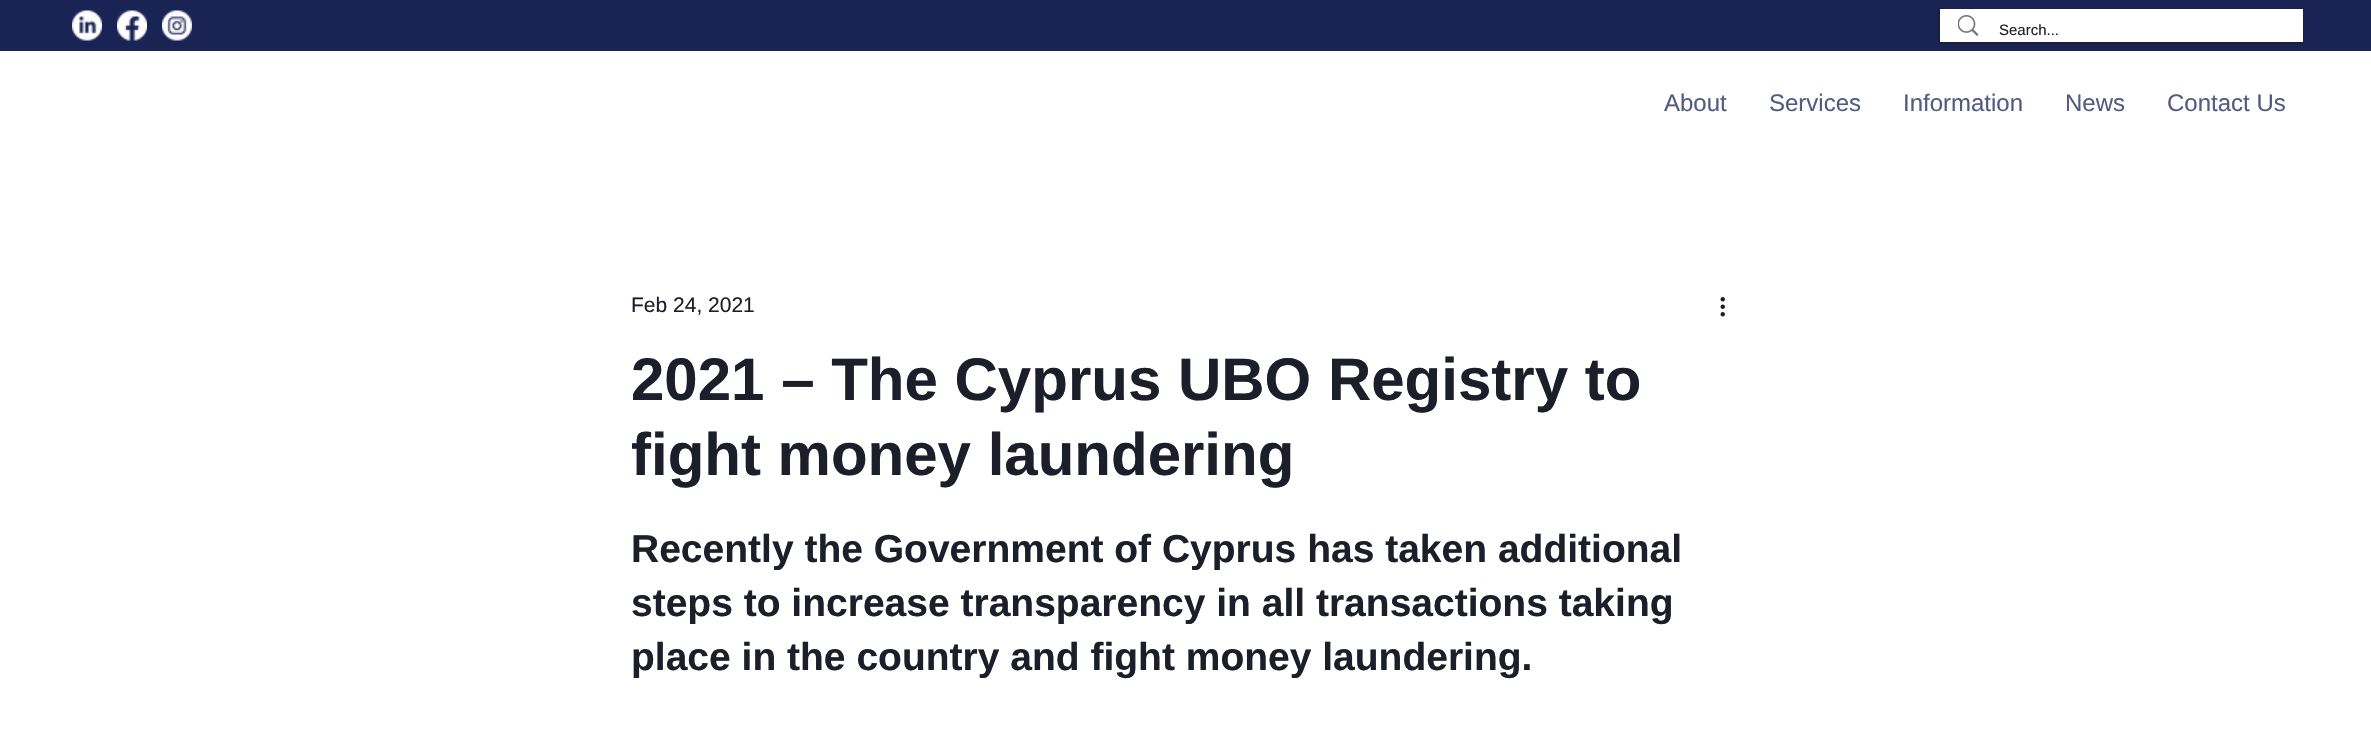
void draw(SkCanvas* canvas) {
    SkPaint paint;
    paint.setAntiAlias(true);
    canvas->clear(0xFFFFFFFF);
    paint.setColor(0xFF1A2454);
    canvas->drawRect(SkRect::MakeXYWH(0, 0, 2371, 51), paint);
    canvas->drawImageRect(SkImages::DeferredFromEncodedData(SkData::MakeFromFileName("img1.png")), SkRect::MakeXYWH(72, 10, 30, 31), SkSamplingOptions());
    canvas->drawImageRect(SkImages::DeferredFromEncodedData(SkData::MakeFromFileName("img2.png")), SkRect::MakeXYWH(117, 10, 30, 31), SkSamplingOptions());
    canvas->drawImageRect(SkImages::DeferredFromEncodedData(SkData::MakeFromFileName("img3.png")), SkRect::MakeXYWH(162, 10, 30, 31), SkSamplingOptions());
    paint.setStyle(SkPaint::kStroke_Style);
    paint.setStrokeWidth(2);
    paint.setColor(0xFF1B203B);
    canvas->drawRect(SkRect::MakeXYWH(1939, 9, 364, 34), paint);
    paint.setStyle(SkPaint::kFill_Style);
    paint.setColor(0xFFFFFFFF);
    canvas->drawRect(SkRect::MakeXYWH(1940, 9, 363, 33), paint);
    canvas->drawImageRect(SkImages::DeferredFromEncodedData(SkData::MakeFromFileName("img4.png")), SkRect::MakeXYWH(1958, 15, 21, 21), SkSamplingOptions());
    SkFont font1(fontMgr->matchFamilyStyle("Liberation Sans", SkFontStyle::Normal()), 15);
    font1.setSubpixel(true);
    paint.setColor(0xFF1C1E2A);
    canvas->drawString("Search...", 1999, 35, font1, paint);
    SkFont font2(fontMgr->matchFamilyStyle("Liberation Sans", SkFontStyle::Normal()), 24);
    font2.setSubpixel(true);
    paint.setColor(0xFF535B7F);
    canvas->drawString("About", 1664, 111, font2, paint);
    canvas->drawString("Services", 1769, 111, font2, paint);
    canvas->drawString("Information", 1903, 111, font2, paint);
    canvas->drawString("News", 2065, 111, font2, paint);
    canvas->drawString("Contact Us", 2167, 111, font2, paint);
    SkFont font3(fontMgr->matchFamilyStyle("Liberation Sans", SkFontStyle::Normal()), 21);
    font3.setSubpixel(true);
    paint.setColor(0xFF1C1E2A);
    canvas->drawString("Feb 24, 2021", 631, 312, font3, paint);
    canvas->drawImageRect(SkImages::DeferredFromEncodedData(SkData::MakeFromFileName("img5.png")), SkRect::MakeXYWH(1720, 297, 5, 20), SkSamplingOptions());
    SkFont font4(fontMgr->matchFamilyStyle("Liberation Sans", SkFontStyle::Bold()), 60);
    font4.setSubpixel(true);
    canvas->drawString("2021 – The Cyprus UBO Registry to", 631, 400, font4, paint);
    canvas->drawString("fight money laundering", 631, 475, font4, paint);
    SkFont font5(fontMgr->matchFamilyStyle("Liberation Sans", SkFontStyle::Bold()), 39);
    font5.setSubpixel(true);
    canvas->drawString("Recently the Government of Cyprus has taken additional", 631, 562, font5, paint);
    canvas->drawString("steps to increase transparency in all transactions taking", 631, 616, font5, paint);
    canvas->drawString("place in the country and fight money laundering.", 631, 670, font5, paint);
}
